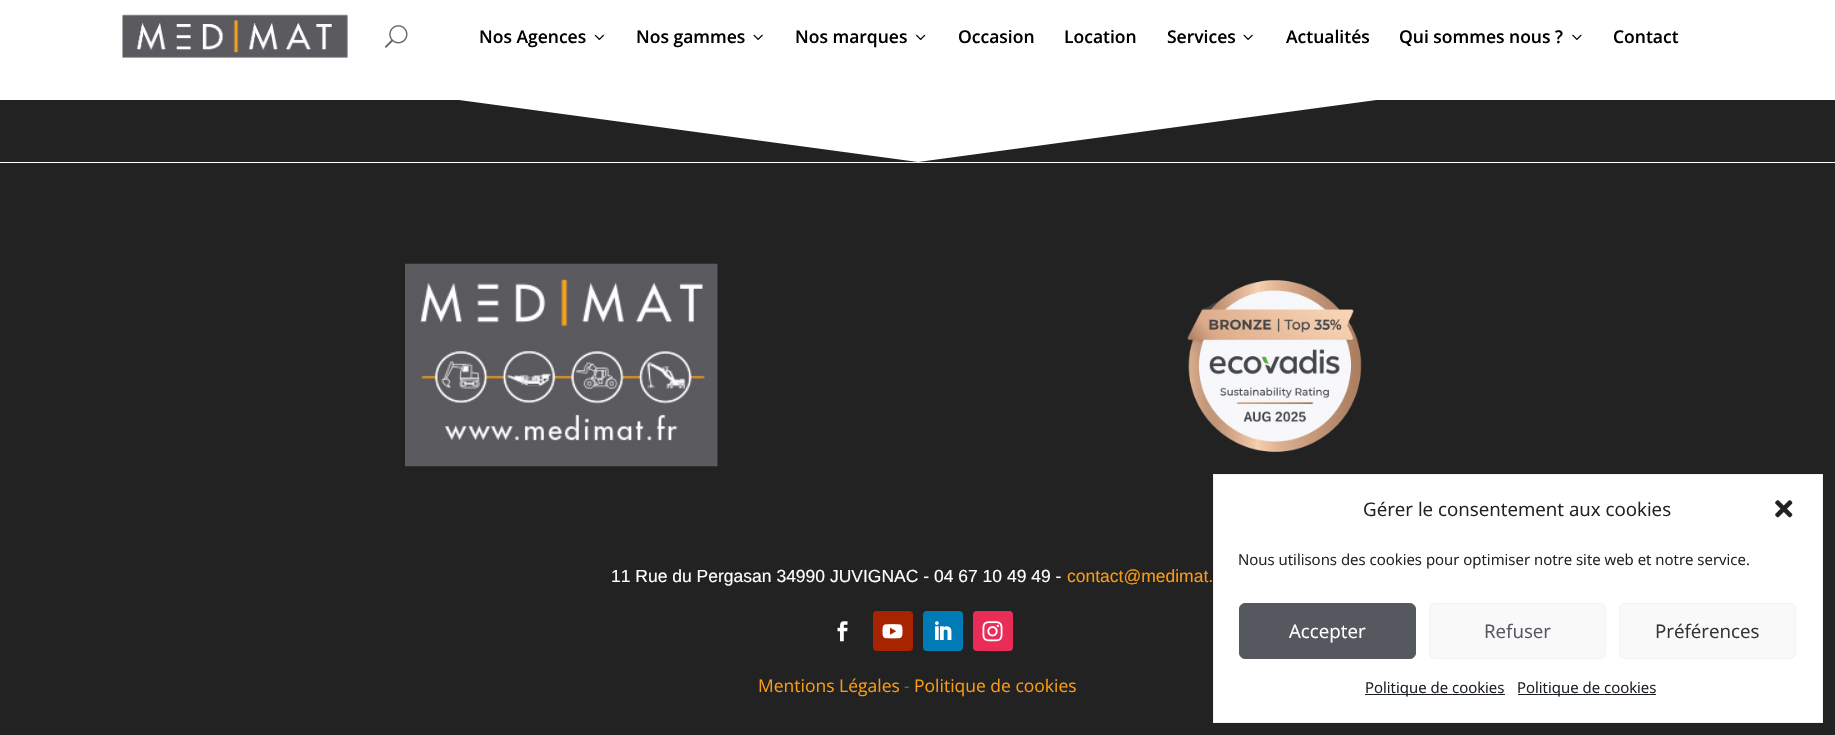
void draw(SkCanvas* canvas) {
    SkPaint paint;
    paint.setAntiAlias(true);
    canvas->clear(0xFFFFFFFF);
    paint.setColor(0xFF222222);
    canvas->drawPath(SkPathBuilder().moveTo(918, 162).lineTo(0, 38).lineTo(0, 162).lineTo(1835, 162).lineTo(1835, 38).close().detach(), paint);
    paint.setColor(0xFFFFFFFF);
    canvas->drawRect(SkRect::MakeXYWH(0, 38, 1835, 62), paint);
    canvas->drawImageRect(SkImages::DeferredFromEncodedData(SkData::MakeFromFileName("img1.png")), SkRect::MakeXYWH(122, 14, 226, 44), SkSamplingOptions());
    canvas->drawImageRect(SkImages::DeferredFromEncodedData(SkData::MakeFromFileName("img2.png")), SkRect::MakeXYWH(384, 25, 24, 23), SkSamplingOptions());
    SkFont font1(fontMgr->matchFamilyStyle("Open Sans", SkFontStyle(600, SkFontStyle::kNormal_Width, SkFontStyle::kUpright_Slant)), 17.5f);
    font1.setSubpixel(true);
    paint.setColor(0xFF000000);
    canvas->drawString("Nos Agences", 479, 43, font1, paint);
    canvas->drawImageRect(SkImages::DeferredFromEncodedData(SkData::MakeFromFileName("img3.png")), SkRect::MakeXYWH(594, 34, 10, 6), SkSamplingOptions());
    canvas->drawString("Nos gammes", 636, 43, font1, paint);
    canvas->drawImageRect(SkImages::DeferredFromEncodedData(SkData::MakeFromFileName("img4.png")), SkRect::MakeXYWH(753, 34, 10, 6), SkSamplingOptions());
    canvas->drawString("Nos marques", 795, 43, font1, paint);
    canvas->drawImageRect(SkImages::DeferredFromEncodedData(SkData::MakeFromFileName("img5.png")), SkRect::MakeXYWH(916, 34, 10, 6), SkSamplingOptions());
    canvas->drawString("Occasion", 958, 43, font1, paint);
    canvas->drawString("Location", 1064, 43, font1, paint);
    canvas->drawString("Services", 1167, 43, font1, paint);
    canvas->drawImageRect(SkImages::DeferredFromEncodedData(SkData::MakeFromFileName("img4.png")), SkRect::MakeXYWH(1243, 34, 10, 6), SkSamplingOptions());
    canvas->drawString("Actualités", 1286, 43, font1, paint);
    canvas->drawString("Qui sommes nous ?", 1399, 43, font1, paint);
    canvas->drawImageRect(SkImages::DeferredFromEncodedData(SkData::MakeFromFileName("img6.png")), SkRect::MakeXYWH(1572, 34, 10, 6), SkSamplingOptions());
    canvas->drawString("Contact", 1613, 43, font1, paint);
    paint.setColor(0xFF222222);
    canvas->drawRect(SkRect::MakeXYWH(0, 163, 1835, 572), paint);
    canvas->drawImageRect(SkImages::DeferredFromEncodedData(SkData::MakeFromFileName("img7.png")), SkRect::MakeXYWH(405, 263, 313, 204), SkSamplingOptions());
    canvas->drawImageRect(SkImages::DeferredFromEncodedData(SkData::MakeFromFileName("img8.png")), SkRect::MakeXYWH(1187, 280, 175, 172), SkSamplingOptions());
    SkFont font2(fontMgr->matchFamilyStyle("Liberation Sans", SkFontStyle::Normal()), 17.5f);
    font2.setSubpixel(true);
    paint.setColor(0xFFFFFFFF);
    canvas->drawString("11 Rue du Pergasan 34990 JUVIGNAC - 04 67 10 49 49 -", 611, 582, font2, paint);
    paint.setColor(0xFFF99B13);
    canvas->drawString("contact@medimat.", 1067, 582, font2, paint);
    canvas->drawImageRect(SkImages::DeferredFromEncodedData(SkData::MakeFromFileName("img9.png")), SkRect::MakeXYWH(837, 621, 11, 21), SkSamplingOptions());
    paint.setColor(0xFFA82400);
    canvas->drawRoundRect(SkRect::MakeXYWH(873, 611, 40, 40), 4, 4, paint);
    canvas->drawImageRect(SkImages::DeferredFromEncodedData(SkData::MakeFromFileName("img10.png")), SkRect::MakeXYWH(882, 624, 21, 15), SkSamplingOptions());
    paint.setColor(0xFF007BB6);
    canvas->drawRoundRect(SkRect::MakeXYWH(923, 611, 40, 40), 4, 4, paint);
    canvas->drawImageRect(SkImages::DeferredFromEncodedData(SkData::MakeFromFileName("img11.png")), SkRect::MakeXYWH(935, 621, 17, 19), SkSamplingOptions());
    paint.setColor(0xFFEA2C59);
    canvas->drawRoundRect(SkRect::MakeXYWH(973, 611, 40, 40), 4, 4, paint);
    canvas->drawImageRect(SkImages::DeferredFromEncodedData(SkData::MakeFromFileName("img12.png")), SkRect::MakeXYWH(982, 621, 21, 21), SkSamplingOptions());
    SkFont font3(fontMgr->matchFamilyStyle("Open Sans", SkFontStyle::Normal()), 17.5f);
    font3.setSubpixel(true);
    paint.setColor(0xFFF99B13);
    canvas->drawString("Mentions Légales", 758, 692, font3, paint);
    paint.setColor(0xFF666666);
    canvas->drawString("-", 904, 692, font3, paint);
    paint.setColor(0xFFF99B13);
    canvas->drawString("Politique de cookies", 914, 692, font3, paint);
    paint.setColor(0xFFFFFFFF);
    canvas->drawRect(SkRect::MakeXYWH(1213.5f, 474.5f, 609, 248), paint);
    paint.setStyle(SkPaint::kStroke_Style);
    paint.setStrokeWidth(1);
    paint.setColor(0xFFF2F2F2);
    canvas->drawRect(SkRect::MakeXYWH(1213.5f, 474.5f, 609, 248), paint);
    SkFont font4(fontMgr->matchFamilyStyle("Open Sans", SkFontStyle::Normal()), 18.75f);
    font4.setSubpixel(true);
    paint.setStyle(SkPaint::kFill_Style);
    paint.setColor(0xFF222222);
    canvas->drawString("Gérer le consentement aux cookies", 1363, 516, font4, paint);
    canvas->drawImageRect(SkImages::DeferredFromEncodedData(SkData::MakeFromFileName("img13.png")), SkRect::MakeXYWH(1775, 500, 18, 18), SkSamplingOptions());
    SkFont font5(fontMgr->matchFamilyStyle("Open Sans", SkFontStyle::Normal()), 15);
    font5.setSubpixel(true);
    canvas->drawString("Nous utilisons des cookies pour optimiser notre site web et notre service.", 1238, 565, font5, paint);
    paint.setColor(0xFF55585E);
    canvas->drawRoundRect(SkRect::MakeXYWH(1239.5f, 603.5f, 176, 55), 5.5f, 5.5f, paint);
    paint.setStyle(SkPaint::kStroke_Style);
    canvas->drawRoundRect(SkRect::MakeXYWH(1239.5f, 603.5f, 176, 55), 5.5f, 5.5f, paint);
    paint.setStyle(SkPaint::kFill_Style);
    paint.setColor(0xFFFFFFFF);
    canvas->drawString("Accepter", 1289, 638, font4, paint);
    paint.setColor(0xFFF9F9F9);
    canvas->drawRoundRect(SkRect::MakeXYWH(1429.5f, 603.5f, 176, 55), 5.5f, 5.5f, paint);
    paint.setStyle(SkPaint::kStroke_Style);
    paint.setColor(0xFFF2F2F2);
    canvas->drawRoundRect(SkRect::MakeXYWH(1429.5f, 603.5f, 176, 55), 5.5f, 5.5f, paint);
    paint.setStyle(SkPaint::kFill_Style);
    paint.setColor(0xFF55585E);
    canvas->drawString("Refuser", 1484, 638, font4, paint);
    paint.setColor(0xFFF9F9F9);
    canvas->drawRoundRect(SkRect::MakeXYWH(1619.5f, 603.5f, 176, 55), 5.5f, 5.5f, paint);
    paint.setStyle(SkPaint::kStroke_Style);
    paint.setColor(0xFFF2F2F2);
    canvas->drawRoundRect(SkRect::MakeXYWH(1619.5f, 603.5f, 176, 55), 5.5f, 5.5f, paint);
    paint.setStyle(SkPaint::kFill_Style);
    paint.setColor(0xFF333333);
    canvas->drawString("Préférences", 1655, 638, font4, paint);
    paint.setColor(0xFF191E23);
    canvas->drawRect(SkRect::MakeXYWH(1365, 694, 140, 1), paint);
    canvas->drawString("Politique de cookies", 1365, 693, font5, paint);
    canvas->drawRect(SkRect::MakeXYWH(1518, 694, 138, 1), paint);
    canvas->drawString("Politique de cookies", 1517, 693, font5, paint);
}
